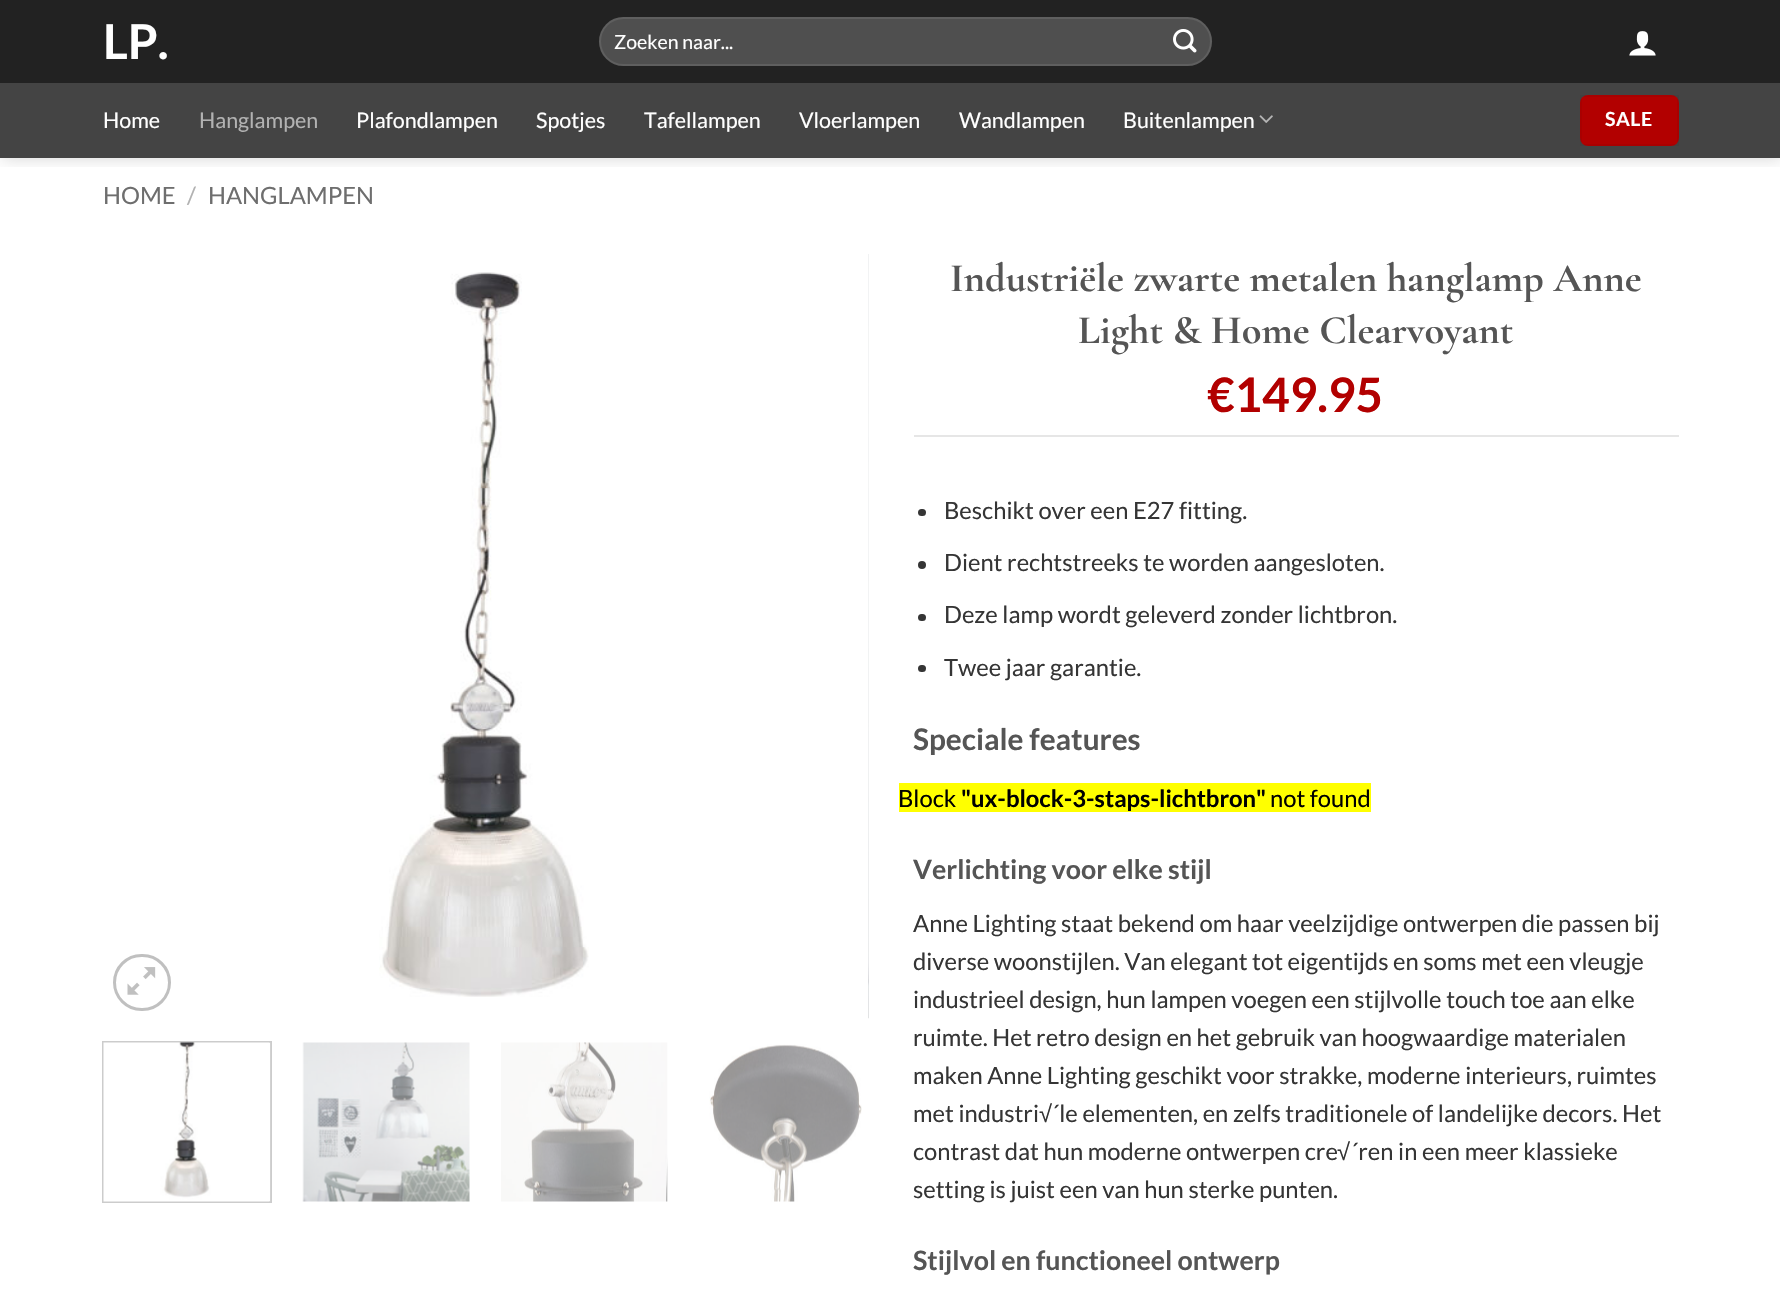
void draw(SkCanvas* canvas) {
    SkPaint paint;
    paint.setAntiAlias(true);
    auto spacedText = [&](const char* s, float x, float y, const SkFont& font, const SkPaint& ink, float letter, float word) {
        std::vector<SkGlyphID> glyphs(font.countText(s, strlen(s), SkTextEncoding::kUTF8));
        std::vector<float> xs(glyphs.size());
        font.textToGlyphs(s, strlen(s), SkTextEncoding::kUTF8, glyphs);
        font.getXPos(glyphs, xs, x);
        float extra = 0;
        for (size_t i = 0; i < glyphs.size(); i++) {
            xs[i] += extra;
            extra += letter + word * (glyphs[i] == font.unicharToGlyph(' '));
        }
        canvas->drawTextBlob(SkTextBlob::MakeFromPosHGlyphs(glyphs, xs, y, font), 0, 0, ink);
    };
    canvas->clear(0xFFFFFFFF);
    canvas->save();
    canvas->clipRect(SkRect::MakeXYWH(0, 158, 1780, 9));
    paint.setColor(0x26000000);
    paint.setMaskFilter(SkMaskFilter::MakeBlur(kNormal_SkBlurStyle, 7.5f));
    canvas->drawRect(SkRect::MakeXYWH(2, 2, 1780, 157), paint);
    paint.setMaskFilter(nullptr);
    canvas->restore();
    paint.setColor(0xE60A0A0A);
    canvas->drawRect(SkRect::MakeXYWH(0, 0, 1780, 83), paint);
    SkFont font1(fontMgr->matchFamilyStyle("Lato", SkFontStyle::Bold()), 48);
    font1.setSubpixel(true);
    paint.setColor(0xFFFFFFFF);
    canvas->drawString("LP.", 103, 59, font1, paint);
    paint.setColor(0xFF4F4F4F);
    canvas->drawRoundRect(SkRect::MakeXYWH(599, 17, 613, 49), 24.5f, 24.5f, paint);
    paint.setStyle(SkPaint::kStroke_Style);
    paint.setStrokeWidth(2);
    paint.setColor(0x17FFFFFF);
    canvas->drawRoundRect(SkRect::MakeXYWH(600, 18, 611, 47), 23.5f, 23.5f, paint);
    SkFont font2(fontMgr->matchFamilyStyle("Lato", SkFontStyle::Normal()), 19.5f);
    font2.setSubpixel(true);
    paint.setStyle(SkPaint::kFill_Style);
    paint.setColor(0xFFFFFFFF);
    canvas->drawString("Zoeken naar...", 614, 49, font2, paint);
    canvas->drawImageRect(SkImages::DeferredFromEncodedData(SkData::MakeFromFileName("img1.png")), SkRect::MakeXYWH(1173, 29, 24, 24), SkSamplingOptions());
    canvas->drawImageRect(SkImages::DeferredFromEncodedData(SkData::MakeFromFileName("img2.png")), SkRect::MakeXYWH(1629, 31, 27, 25), SkSamplingOptions());
    paint.setColor(0xFF444444);
    canvas->drawRect(SkRect::MakeXYWH(0, 83, 1780, 75), paint);
    SkFont font3(fontMgr->matchFamilyStyle("Lato", SkFontStyle::Normal()), 21.5f);
    font3.setSubpixel(true);
    paint.setColor(0xFFFFFFFF);
    canvas->drawString("Home", 103, 128, font3, paint);
    paint.setColor(0xFFB2B2B2);
    canvas->drawString("Hanglampen", 199, 128, font3, paint);
    paint.setColor(0xFFFFFFFF);
    canvas->drawString("Plafondlampen", 356, 128, font3, paint);
    canvas->drawString("Spotjes", 536, 128, font3, paint);
    canvas->drawString("Tafellampen", 644, 128, font3, paint);
    canvas->drawString("Vloerlampen", 799, 128, font3, paint);
    canvas->drawString("Wandlampen", 959, 128, font3, paint);
    canvas->drawString("Buitenlampen", 1123, 128, font3, paint);
    canvas->drawImageRect(SkImages::DeferredFromEncodedData(SkData::MakeFromFileName("img3.png")), SkRect::MakeXYWH(1259, 115, 14, 8), SkSamplingOptions());
    paint.setColor(0xFFB20000);
    canvas->drawRoundRect(SkRect::MakeXYWH(1580, 95, 99, 51), 8, 8, paint);
    paint.setStyle(SkPaint::kStroke_Style);
    paint.setColor(0x0D000000);
    canvas->drawRect(SkRect::MakeXYWH(1581, 96, 97, 49), paint);
    SkFont font4(fontMgr->matchFamilyStyle("Lato", SkFontStyle::Bold()), 19.5f);
    font4.setSubpixel(true);
    paint.setStyle(SkPaint::kFill_Style);
    paint.setColor(0xFFFFFFFF);
    spacedText("SALE", 1605, 126, font4, paint, 0.5f, 0);
    SkFont font5(fontMgr->matchFamilyStyle("Lato", SkFontStyle::Normal()), 23.75f);
    font5.setSubpixel(true);
    paint.setColor(0xFF6E6E6E);
    canvas->drawString("HOME", 103, 204, font5, paint);
    paint.setColor(0xFFB2B2B2);
    canvas->drawString("/", 187, 204, font5, paint);
    paint.setColor(0xFF6E6E6E);
    canvas->drawString("HANGLAMPEN", 208, 204, font5, paint);
    paint.setStyle(SkPaint::kStroke_Style);
    paint.setStrokeWidth(3);
    paint.setColor(0xFFC0C0C0);
    canvas->drawRoundRect(SkRect::MakeXYWH(114.5f, 955.5f, 55, 54), 27, 27, paint);
    canvas->drawImageRect(SkImages::DeferredFromEncodedData(SkData::MakeFromFileName("img4.png")), SkRect::MakeXYWH(127, 967, 29, 28), SkSamplingOptions());
    canvas->drawImageRect(SkImages::DeferredFromEncodedData(SkData::MakeFromFileName("img5.png")), SkRect::MakeXYWH(379, 272, 210, 725), SkSamplingOptions());
    canvas->drawImageRect(SkImages::DeferredFromEncodedData(SkData::MakeFromFileName("img6.png")), SkRect::MakeXYWH(868, 254, 1, 765), SkSamplingOptions());
    paint.setStrokeWidth(2);
    paint.setColor(0xFFCCCCCC);
    canvas->drawRect(SkRect::MakeXYWH(103, 1042, 168, 160), paint);
    canvas->drawImageRect(SkImages::DeferredFromEncodedData(SkData::MakeFromFileName("img7.png")), SkRect::MakeXYWH(103, 1042, 168, 160), SkSamplingOptions());
    canvas->drawImageRect(SkImages::DeferredFromEncodedData(SkData::MakeFromFileName("img8.png")), SkRect::MakeXYWH(302, 1042, 168, 160), SkSamplingOptions());
    canvas->drawImageRect(SkImages::DeferredFromEncodedData(SkData::MakeFromFileName("img9.png")), SkRect::MakeXYWH(501, 1042, 167, 160), SkSamplingOptions());
    canvas->drawImageRect(SkImages::DeferredFromEncodedData(SkData::MakeFromFileName("img10.png")), SkRect::MakeXYWH(709, 1044, 153, 158), SkSamplingOptions());
    SkFont font6(fontMgr->matchFamilyStyle("Cormorant Garamond", SkFontStyle::Bold()), 40.4f);
    font6.setSubpixel(true);
    paint.setStyle(SkPaint::kFill_Style);
    paint.setColor(0xFF555555);
    canvas->drawString("Industriële zwarte metalen hanglamp Anne", 950, 291, font6, paint);
    canvas->drawString("Light & Home Clearvoyant", 1078, 343, font6, paint);
    SkFont font7(fontMgr->matchFamilyStyle("Lato", SkFontStyle::Bold()), 47.5f);
    font7.setSubpixel(true);
    paint.setColor(0xFFB20000);
    canvas->drawString("€149.95", 1207, 412, font7, paint);
    paint.setColor(0xFFE6E6E6);
    canvas->drawRect(SkRect::MakeXYWH(914, 435, 765, 2), paint);
    paint.setColor(0xFF353535);
    canvas->drawRoundRect(SkRect::MakeXYWH(918, 509, 8, 7), 3.5f, 3.5f, paint);
    canvas->drawString("Beschikt over een E27 fitting.", 944, 519, font5, paint);
    canvas->drawCircle(922, 565, 4, paint);
    canvas->drawString("Dient rechtstreeks te worden aangesloten.", 944, 571, font5, paint);
    canvas->drawRoundRect(SkRect::MakeXYWH(918, 614, 8, 7), 3.5f, 3.5f, paint);
    canvas->drawString("Deze lamp wordt geleverd zonder lichtbron.", 944, 623, font5, paint);
    canvas->drawRoundRect(SkRect::MakeXYWH(918, 665, 8, 7), 3.5f, 3.5f, paint);
    canvas->drawString("Twee jaar garantie.", 944, 676, font5, paint);
    SkFont font8(fontMgr->matchFamilyStyle("Lato", SkFontStyle::Bold()), 29.75f);
    font8.setSubpixel(true);
    paint.setColor(0xFF555555);
    canvas->drawString("Speciale features", 913, 750, font8, paint);
    paint.setColor(0xFFFFFF00);
    canvas->drawRect(SkRect::MakeXYWH(899, 783, 472, 29), paint);
    paint.setColor(0xFF000000);
    canvas->drawString("Block", 898, 807, font5, paint);
    SkFont font9(fontMgr->matchFamilyStyle("Lato", SkFontStyle::Bold()), 23.75f);
    font9.setSubpixel(true);
    canvas->drawString("\"ux-block-3-staps-lichtbron\"", 961, 807, font9, paint);
    canvas->drawString("not found", 1270, 807, font5, paint);
    SkFont font10(fontMgr->matchFamilyStyle("Lato", SkFontStyle::Bold()), 26.75f);
    font10.setSubpixel(true);
    paint.setColor(0xFF555555);
    canvas->drawString("Verlichting voor elke stijl", 913, 879, font10, paint);
    paint.setColor(0xFF353535);
    canvas->drawString("Anne Lighting staat bekend om haar veelzijdige ontwerpen die passen bij", 913, 932, font5, paint);
    canvas->drawString("diverse woonstijlen. Van elegant tot eigentijds en soms met een vleugje", 913, 970, font5, paint);
    canvas->drawString("industrieel design, hun lampen voegen een stijlvolle touch toe aan elke", 913, 1008, font5, paint);
    canvas->drawString("ruimte. Het retro design en het gebruik van hoogwaardige materialen", 913, 1046, font5, paint);
    canvas->drawString("maken Anne Lighting geschikt voor strakke, moderne interieurs, ruimtes", 913, 1084, font5, paint);
    canvas->drawString("met industri", 913, 1122, font5, paint);
    SkFont font11(fontMgr->matchFamilyStyle("Liberation Sans", SkFontStyle::Normal()), 23.75f);
    font11.setSubpixel(true);
    canvas->drawString("√", 1039, 1122, font11, paint);
    canvas->drawString("´le elementen, en zelfs traditionele of landelijke decors. Het", 1052, 1122, font5, paint);
    canvas->drawString("contrast dat hun moderne ontwerpen cre", 913, 1160, font5, paint);
    canvas->drawString("√", 1337, 1160, font11, paint);
    canvas->drawString("´ren in een meer klassieke", 1351, 1160, font5, paint);
    canvas->drawString("setting is juist een van hun sterke punten.", 913, 1198, font5, paint);
    paint.setColor(0xFF555555);
    canvas->drawString("Stijlvol en functioneel ontwerp", 913, 1270, font10, paint);
}
